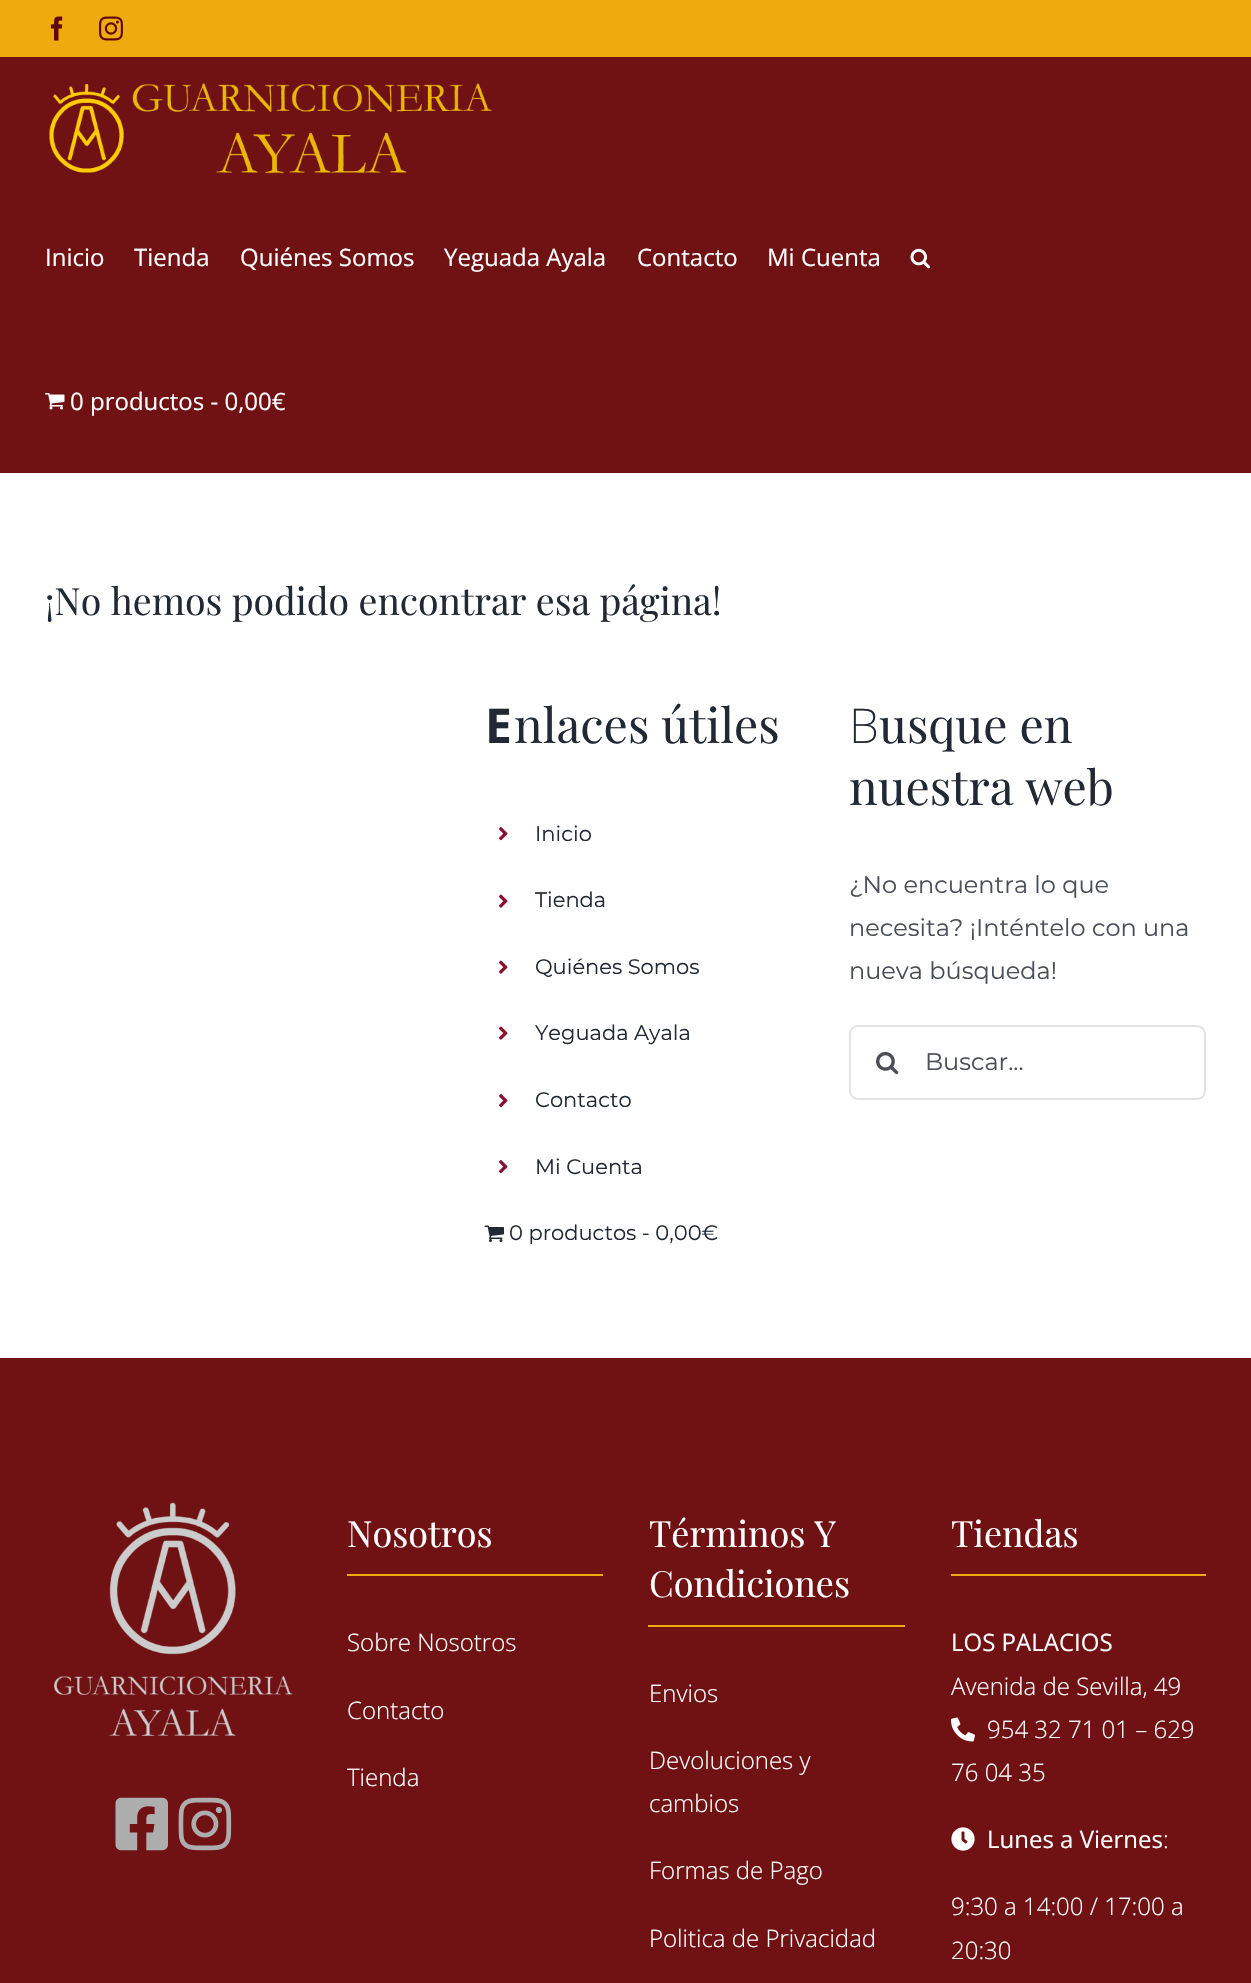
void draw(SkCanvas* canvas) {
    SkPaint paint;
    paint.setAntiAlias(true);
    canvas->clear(0xFFFFFFFF);
    paint.setColor(0xFFEFAA0E);
    canvas->drawRect(SkRect::MakeXYWH(0, 0, 1251, 57), paint);
    canvas->drawImageRect(SkImages::DeferredFromEncodedData(SkData::MakeFromFileName("img1.png")), SkRect::MakeXYWH(51, 16, 12, 25), SkSamplingOptions());
    canvas->drawImageRect(SkImages::DeferredFromEncodedData(SkData::MakeFromFileName("img2.png")), SkRect::MakeXYWH(99, 16, 24, 25), SkSamplingOptions());
    paint.setColor(0xFF701114);
    canvas->drawRect(SkRect::MakeXYWH(0, 57, 1251, 416), paint);
    canvas->drawImageRect(SkImages::DeferredFromEncodedData(SkData::MakeFromFileName("img3.png")), SkRect::MakeXYWH(49, 83, 443, 91), SkSamplingOptions());
    SkFont font1(fontMgr->matchFamilyStyle("Open Sans", SkFontStyle::Normal()), 24);
    font1.setSubpixel(true);
    paint.setColor(0xFFFFFFFF);
    canvas->drawString("Inicio", 45, 266, font1, paint);
    canvas->drawString("Tienda", 134, 266, font1, paint);
    canvas->drawString("Quiénes Somos", 240, 266, font1, paint);
    canvas->drawString("Yeguada Ayala", 444, 266, font1, paint);
    canvas->drawString("Contacto", 637, 266, font1, paint);
    canvas->drawString("Mi Cuenta", 767, 266, font1, paint);
    canvas->drawImageRect(SkImages::DeferredFromEncodedData(SkData::MakeFromFileName("img4.png")), SkRect::MakeXYWH(910, 248, 20, 21), SkSamplingOptions());
    canvas->drawImageRect(SkImages::DeferredFromEncodedData(SkData::MakeFromFileName("img5.png")), SkRect::MakeXYWH(45, 393, 20, 17), SkSamplingOptions());
    canvas->drawString("0 productos - 0,00€", 70, 410, font1, paint);
    SkFont font2(fontMgr->matchFamilyStyle("Playfair Display", SkFontStyle::Normal()), 37.5f);
    font2.setSubpixel(true);
    paint.setColor(0xFF212934);
    canvas->drawString("¡No hemos podido encontrar esa página!", 45, 615, font2, paint);
    SkFont font3(fontMgr->matchFamilyStyle("Noto Sans", SkFontStyle::Bold()), 48);
    font3.setSubpixel(true);
    canvas->drawString("E", 485, 743, font3, paint);
    SkFont font4(fontMgr->matchFamilyStyle("Playfair Display", SkFontStyle::Normal()), 48);
    font4.setSubpixel(true);
    canvas->drawString("nlaces útiles", 514, 743, font4, paint);
    canvas->drawImageRect(SkImages::DeferredFromEncodedData(SkData::MakeFromFileName("img6.png")), SkRect::MakeXYWH(499, 827, 9, 14), SkSamplingOptions());
    SkFont font5(fontMgr->matchFamilyStyle("Montserrat", SkFontStyle::Normal()), 21);
    font5.setSubpixel(true);
    canvas->drawString("Inicio", 535, 841, font5, paint);
    canvas->drawImageRect(SkImages::DeferredFromEncodedData(SkData::MakeFromFileName("img7.png")), SkRect::MakeXYWH(499, 894, 9, 14), SkSamplingOptions());
    canvas->drawString("Tienda", 535, 907, font5, paint);
    canvas->drawImageRect(SkImages::DeferredFromEncodedData(SkData::MakeFromFileName("img7.png")), SkRect::MakeXYWH(499, 960, 9, 14), SkSamplingOptions());
    canvas->drawString("Quiénes Somos", 535, 974, font5, paint);
    canvas->drawImageRect(SkImages::DeferredFromEncodedData(SkData::MakeFromFileName("img7.png")), SkRect::MakeXYWH(499, 1026, 9, 14), SkSamplingOptions());
    canvas->drawString("Yeguada Ayala", 535, 1040, font5, paint);
    canvas->drawImageRect(SkImages::DeferredFromEncodedData(SkData::MakeFromFileName("img6.png")), SkRect::MakeXYWH(499, 1094, 9, 14), SkSamplingOptions());
    canvas->drawString("Contacto", 535, 1107, font5, paint);
    canvas->drawImageRect(SkImages::DeferredFromEncodedData(SkData::MakeFromFileName("img6.png")), SkRect::MakeXYWH(499, 1160, 9, 14), SkSamplingOptions());
    canvas->drawString("Mi Cuenta", 535, 1174, font5, paint);
    canvas->drawImageRect(SkImages::DeferredFromEncodedData(SkData::MakeFromFileName("img8.png")), SkRect::MakeXYWH(484, 1225, 20, 17), SkSamplingOptions());
    canvas->drawString("0 productos - 0,00€", 509, 1240, font5, paint);
    SkFont font6(fontMgr->matchFamilyStyle("Noto Sans", SkFontStyle(200, SkFontStyle::kNormal_Width, SkFontStyle::kUpright_Slant)), 48);
    font6.setSubpixel(true);
    canvas->drawString("B", 849, 743, font6, paint);
    canvas->drawString("usque en", 879, 743, font4, paint);
    canvas->drawString("nuestra web", 849, 805, font4, paint);
    SkFont font7(fontMgr->matchFamilyStyle("Montserrat", SkFontStyle::Normal()), 24);
    font7.setSubpixel(true);
    paint.setColor(0xFF4A4E57);
    canvas->drawString("¿No encuentra lo que", 849, 893, font7, paint);
    canvas->drawString("necesita? ¡Inténtelo con una", 849, 936, font7, paint);
    canvas->drawString("nueva búsqueda!", 849, 979, font7, paint);
    paint.setStyle(SkPaint::kStroke_Style);
    paint.setStrokeWidth(2);
    paint.setColor(0xFFE2E2E2);
    canvas->drawRoundRect(SkRect::MakeXYWH(850, 1026, 355, 73), 8, 8, paint);
    canvas->drawImageRect(SkImages::DeferredFromEncodedData(SkData::MakeFromFileName("img9.png")), SkRect::MakeXYWH(876, 1051, 23, 24), SkSamplingOptions());
    paint.setStyle(SkPaint::kFill_Style);
    paint.setColor(0xFF4A4E57);
    canvas->drawString("Buscar...", 925, 1070, font7, paint);
    paint.setColor(0xFF701114);
    canvas->drawRect(SkRect::MakeXYWH(0, 1358, 1251, 625), paint);
    canvas->drawImageRect(SkImages::DeferredFromEncodedData(SkData::MakeFromFileName("img10.png")), SkRect::MakeXYWH(54, 1502, 239, 234), SkSamplingOptions());
    canvas->drawImageRect(SkImages::DeferredFromEncodedData(SkData::MakeFromFileName("img11.png")), SkRect::MakeXYWH(115, 1797, 53, 54), SkSamplingOptions());
    canvas->drawImageRect(SkImages::DeferredFromEncodedData(SkData::MakeFromFileName("img12.png")), SkRect::MakeXYWH(178, 1797, 54, 54), SkSamplingOptions());
    paint.setColor(0xFFEFAA0E);
    canvas->drawRect(SkRect::MakeXYWH(347, 1574, 256, 2), paint);
    SkFont font8(fontMgr->matchFamilyStyle("Playfair Display", SkFontStyle::Normal()), 36);
    font8.setSubpixel(true);
    paint.setColor(0xFFFFFFFF);
    canvas->drawString("Nosotros", 347, 1547, font8, paint);
    SkFont font9(fontMgr->matchFamilyStyle("Open Sans", SkFontStyle(300, SkFontStyle::kNormal_Width, SkFontStyle::kUpright_Slant)), 24);
    font9.setSubpixel(true);
    canvas->drawString("Sobre Nosotros", 347, 1651, font9, paint);
    canvas->drawString("Contacto", 347, 1719, font9, paint);
    canvas->drawString("Tienda", 347, 1786, font9, paint);
    paint.setColor(0xFFEFAA0E);
    canvas->drawRect(SkRect::MakeXYWH(648, 1625, 257, 2), paint);
    paint.setColor(0xFFFFFFFF);
    canvas->drawString("Términos Y", 649, 1547, font8, paint);
    canvas->drawString("Condiciones", 649, 1597, font8, paint);
    canvas->drawString("Envios", 649, 1702, font9, paint);
    canvas->drawString("Devoluciones y", 649, 1769, font9, paint);
    canvas->drawString("cambios", 649, 1812, font9, paint);
    canvas->drawString("Formas de Pago", 649, 1879, font9, paint);
    canvas->drawString("Politica de Privacidad", 649, 1947, font9, paint);
    paint.setColor(0xFFEFAA0E);
    canvas->drawRect(SkRect::MakeXYWH(951, 1574, 255, 2), paint);
    paint.setColor(0xFFFFFFFF);
    canvas->drawString("Tiendas", 951, 1547, font8, paint);
    canvas->drawString("LOS PALACIOS", 951, 1651, font1, paint);
    canvas->drawString("Avenida de Sevilla, 49", 951, 1695, font9, paint);
    canvas->drawImageRect(SkImages::DeferredFromEncodedData(SkData::MakeFromFileName("img13.png")), SkRect::MakeXYWH(951, 1717, 24, 25), SkSamplingOptions());
    canvas->drawString("954 32 71 01 – 629", 987, 1738, font9, paint);
    canvas->drawString("76 04 35", 951, 1781, font9, paint);
    canvas->drawImageRect(SkImages::DeferredFromEncodedData(SkData::MakeFromFileName("img14.png")), SkRect::MakeXYWH(951, 1827, 24, 24), SkSamplingOptions());
    canvas->drawString("Lunes a Viernes", 987, 1848, font1, paint);
    canvas->drawString(":", 1163, 1848, font9, paint);
    canvas->drawString("9:30 a 14:00 / 17:00 a", 951, 1915, font9, paint);
    canvas->drawString("20:30", 951, 1959, font9, paint);
}
